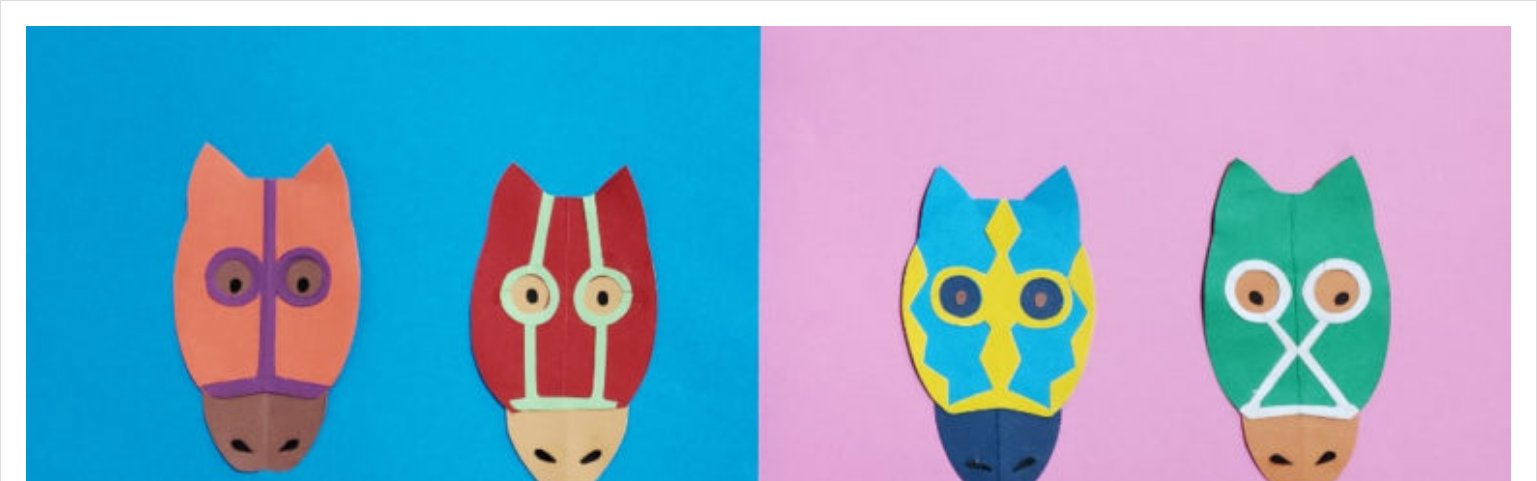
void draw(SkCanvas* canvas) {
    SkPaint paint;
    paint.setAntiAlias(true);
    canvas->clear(0xFFFFFFFF);
    paint.setStyle(SkPaint::kStroke_Style);
    paint.setStrokeWidth(1);
    paint.setColor(0xFFDCDCDE);
    canvas->drawRect(SkRect::MakeXYWH(0.5f, 0.5f, 1536, 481), paint);
    canvas->drawImageRect(SkImages::DeferredFromEncodedData(SkData::MakeFromFileName("img1.png")), SkRect::MakeXYWH(26, 26, 1485, 455), SkSamplingOptions());
}
